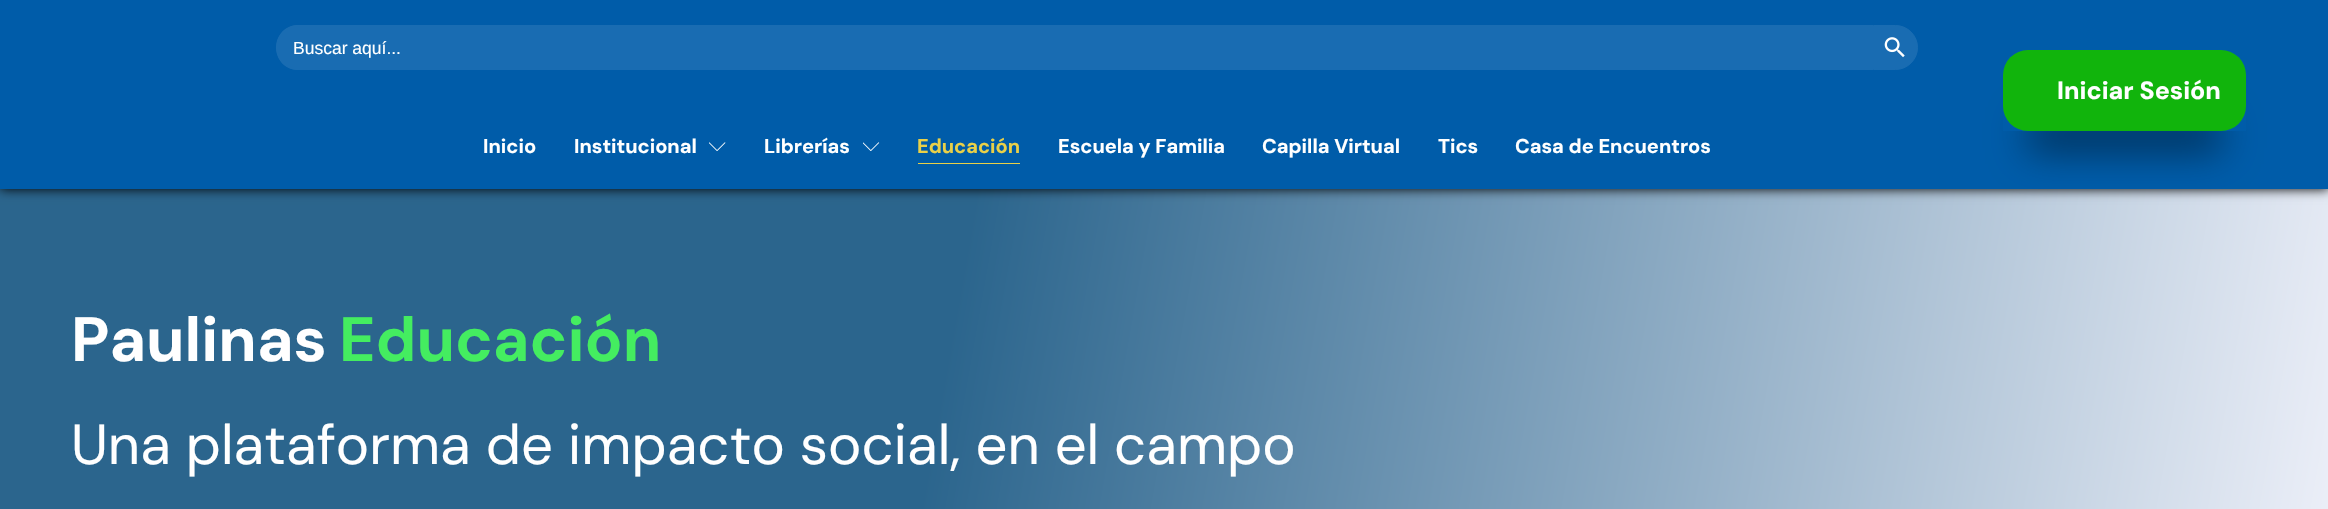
void draw(SkCanvas* canvas) {
    SkPaint paint;
    paint.setAntiAlias(true);
    canvas->clear(0xFFFFFFFF);
    {
        const SkColor colors[] = {0xFF2B658D, 0xFFF3F4FC};
        const float stops[] = {0.4f, 1};
        const SkPoint ends[] = {{-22, 298}, {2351, 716}};
        paint.setShader(SkGradientShader::MakeLinear(ends, colors, stops, 2, SkTileMode::kClamp));
        paint.setAlpha(255);
    }
    canvas->drawRect(SkRect::MakeXYWH(0, 189, 2328, 320), paint);
    paint.setShader(nullptr);
    paint.setColor(0xFF000000);
    paint.setMaskFilter(SkMaskFilter::MakeBlur(kNormal_SkBlurStyle, 5.5f));
    canvas->drawRect(SkRect::MakeXYWH(0, 0, 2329, 189), paint);
    paint.setMaskFilter(nullptr);
    paint.setColor(0xFF005CA9);
    canvas->drawRect(SkRect::MakeXYWH(0, 0, 2328, 189), paint);
    paint.setColor(0xFF196CB2);
    canvas->drawPath(SkPathBuilder().moveTo(298.5f, 25).lineTo(1873, 25).lineTo(1873, 70).lineTo(298.5f, 70).cubicTo(286, 70, 276, 60, 276, 47.5f).cubicTo(276, 35, 286, 25, 298.5f, 25).close().detach(), paint);
    canvas->drawPath(SkPathBuilder(SkPathFillType::kEvenOdd).moveTo(299, 25).lineTo(1872, 25).lineTo(1872, 70).lineTo(299, 70).cubicTo(269, 70, 269, 25, 299, 25).close().moveTo(299, 26).lineTo(1872, 26).lineTo(1872, 69).lineTo(299, 69).cubicTo(271, 69, 271, 26, 299, 26).close().detach(), paint);
    SkFont font1(fontMgr->matchFamilyStyle("Liberation Sans", SkFontStyle::Normal()), 17.5f);
    font1.setSubpixel(true);
    paint.setColor(0xFFFFFFFF);
    canvas->drawString("Buscar aquí...", 293, 54, font1, paint);
    paint.setColor(0xFF196CB2);
    canvas->drawPath(SkPathBuilder().moveTo(1873.5f, 25.5f).lineTo(1895.5f, 25.5f).cubicTo(1907.5f, 25.5f, 1917.5f, 35.5f, 1917.5f, 47.5f).cubicTo(1917.5f, 59.5f, 1907.5f, 69.5f, 1895.5f, 69.5f).lineTo(1873.5f, 69.5f).close().detach(), paint);
    paint.setStyle(SkPaint::kStroke_Style);
    paint.setStrokeWidth(1);
    canvas->drawPath(SkPathBuilder().moveTo(1873.5f, 25.5f).lineTo(1895.5f, 25.5f).cubicTo(1907.5f, 25.5f, 1917.5f, 35.5f, 1917.5f, 47.5f).cubicTo(1917.5f, 59.5f, 1907.5f, 69.5f, 1895.5f, 69.5f).lineTo(1873.5f, 69.5f).close().detach(), paint);
    canvas->drawImageRect(SkImages::DeferredFromEncodedData(SkData::MakeFromFileName("img1.png")), SkRect::MakeXYWH(1884, 37, 21, 21), SkSamplingOptions());
    SkFont font2(fontMgr->matchFamilyStyle("DM Sans", SkFontStyle::Bold()), 20);
    font2.setSubpixel(true);
    paint.setStyle(SkPaint::kFill_Style);
    paint.setColor(0xFFFFFFFF);
    canvas->drawString("Inicio", 483, 153, font2, paint);
    canvas->drawString("Institucional", 574, 153, font2, paint);
    canvas->drawImageRect(SkImages::DeferredFromEncodedData(SkData::MakeFromFileName("img2.png")), SkRect::MakeXYWH(709, 142, 17, 9), SkSamplingOptions());
    canvas->drawString("Librerías", 764, 153, font2, paint);
    canvas->drawImageRect(SkImages::DeferredFromEncodedData(SkData::MakeFromFileName("img3.png")), SkRect::MakeXYWH(863, 142, 17, 9), SkSamplingOptions());
    paint.setColor(0xFFE9D048);
    canvas->drawRect(SkRect::MakeXYWH(918, 163, 102, 1), paint);
    canvas->drawString("Educación", 917, 153, font2, paint);
    paint.setColor(0xFFFFFFFF);
    canvas->drawString("Escuela y Familia", 1058, 153, font2, paint);
    canvas->drawString("Capilla Virtual", 1262, 153, font2, paint);
    canvas->drawString("Tics", 1438, 153, font2, paint);
    canvas->drawString("Casa de Encuentros", 1515, 153, font2, paint);
    canvas->save();
    canvas->clipPath(SkPathBuilder(SkPathFillType::kEvenOdd).moveTo(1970, 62).lineTo(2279, 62).lineTo(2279, 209).lineTo(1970, 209).close().moveTo(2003, 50).lineTo(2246, 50).lineTo(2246, 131).lineTo(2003, 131).close().detach(), true);
    paint.setColor(0x80000000);
    paint.setMaskFilter(SkMaskFilter::MakeBlur(kNormal_SkBlurStyle, 19));
    canvas->drawRect(SkRect::MakeXYWH(2028, 120, 193, 31), paint);
    paint.setMaskFilter(nullptr);
    canvas->restore();
    paint.setColor(0xFF11B40C);
    canvas->drawRoundRect(SkRect::MakeXYWH(2003, 50, 243, 81), 25, 25, paint);
    SkFont font3(fontMgr->matchFamilyStyle("DM Sans", SkFontStyle(800, SkFontStyle::kNormal_Width, SkFontStyle::kUpright_Slant)), 25);
    font3.setSubpixel(true);
    paint.setColor(0xFFFFFFFF);
    canvas->drawString("Iniciar Sesión", 2057, 99, font3, paint);
    SkFont font4(fontMgr->matchFamilyStyle("DM Sans", SkFontStyle::Bold()), 62.5f);
    font4.setSubpixel(true);
    canvas->drawString("Paulinas", 71, 361, font4, paint);
    paint.setColor(0xFF44ED60);
    canvas->drawString("Educación", 339, 361, font4, paint);
    SkFont font5(fontMgr->matchFamilyStyle("DM Sans", SkFontStyle::Normal()), 56.25f);
    font5.setSubpixel(true);
    paint.setColor(0xFFFFFFFF);
    canvas->drawString("Una plataforma de impacto social, en el campo", 71, 464, font5, paint);
}
